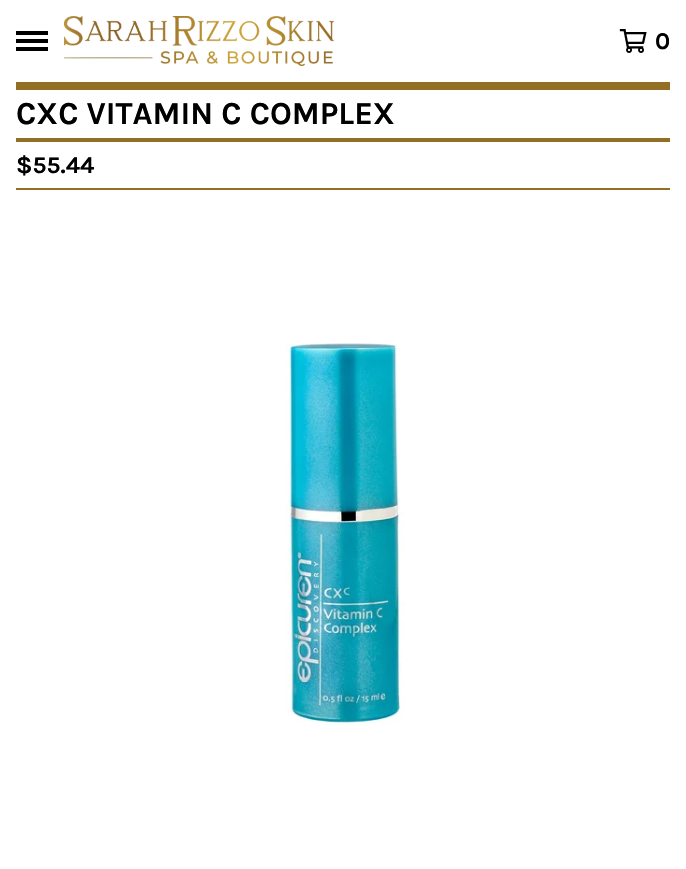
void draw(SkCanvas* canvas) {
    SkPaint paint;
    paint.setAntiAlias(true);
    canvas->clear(0xFFFFFFFF);
    paint.setColor(0xFF926F24);
    canvas->drawRect(SkRect::MakeXYWH(16, 82, 654, 8), paint);
    paint.setColor(0xFF000000);
    canvas->drawRect(SkRect::MakeXYWH(16, 39, 32, 4), paint);
    canvas->drawRect(SkRect::MakeXYWH(16, 31, 32, 4), paint);
    canvas->drawRect(SkRect::MakeXYWH(16, 47, 32, 4), paint);
    canvas->drawImageRect(SkImages::DeferredFromEncodedData(SkData::MakeFromFileName("img1.png")), SkRect::MakeXYWH(64, 16, 270, 50), SkSamplingOptions());
    canvas->drawImageRect(SkImages::DeferredFromEncodedData(SkData::MakeFromFileName("img2.png")), SkRect::MakeXYWH(619, 29, 28, 24), SkSamplingOptions());
    SkFont font1(fontMgr->matchFamilyStyle("Karla", SkFontStyle::Bold()), 24);
    font1.setSubpixel(true);
    canvas->drawString("0", 655, 49, font1, paint);
    paint.setColor(0xFF926F24);
    canvas->drawRect(SkRect::MakeXYWH(16, 138, 654, 4), paint);
    SkFont font2(fontMgr->matchFamilyStyle("Karla", SkFontStyle::Bold()), 32);
    font2.setSubpixel(true);
    paint.setColor(0xFF000000);
    canvas->drawString("CXC VITAMIN C COMPLEX", 16, 124, font2, paint);
    paint.setColor(0xFF926F24);
    canvas->drawRect(SkRect::MakeXYWH(16, 188, 654, 2), paint);
    paint.setColor(0xFF000000);
    canvas->drawString("$55.44", 16, 173, font1, paint);
    canvas->drawImageRect(SkImages::DeferredFromEncodedData(SkData::MakeFromFileName("img3.png")), SkRect::MakeXYWH(285, 343, 120, 382), SkSamplingOptions());
}
